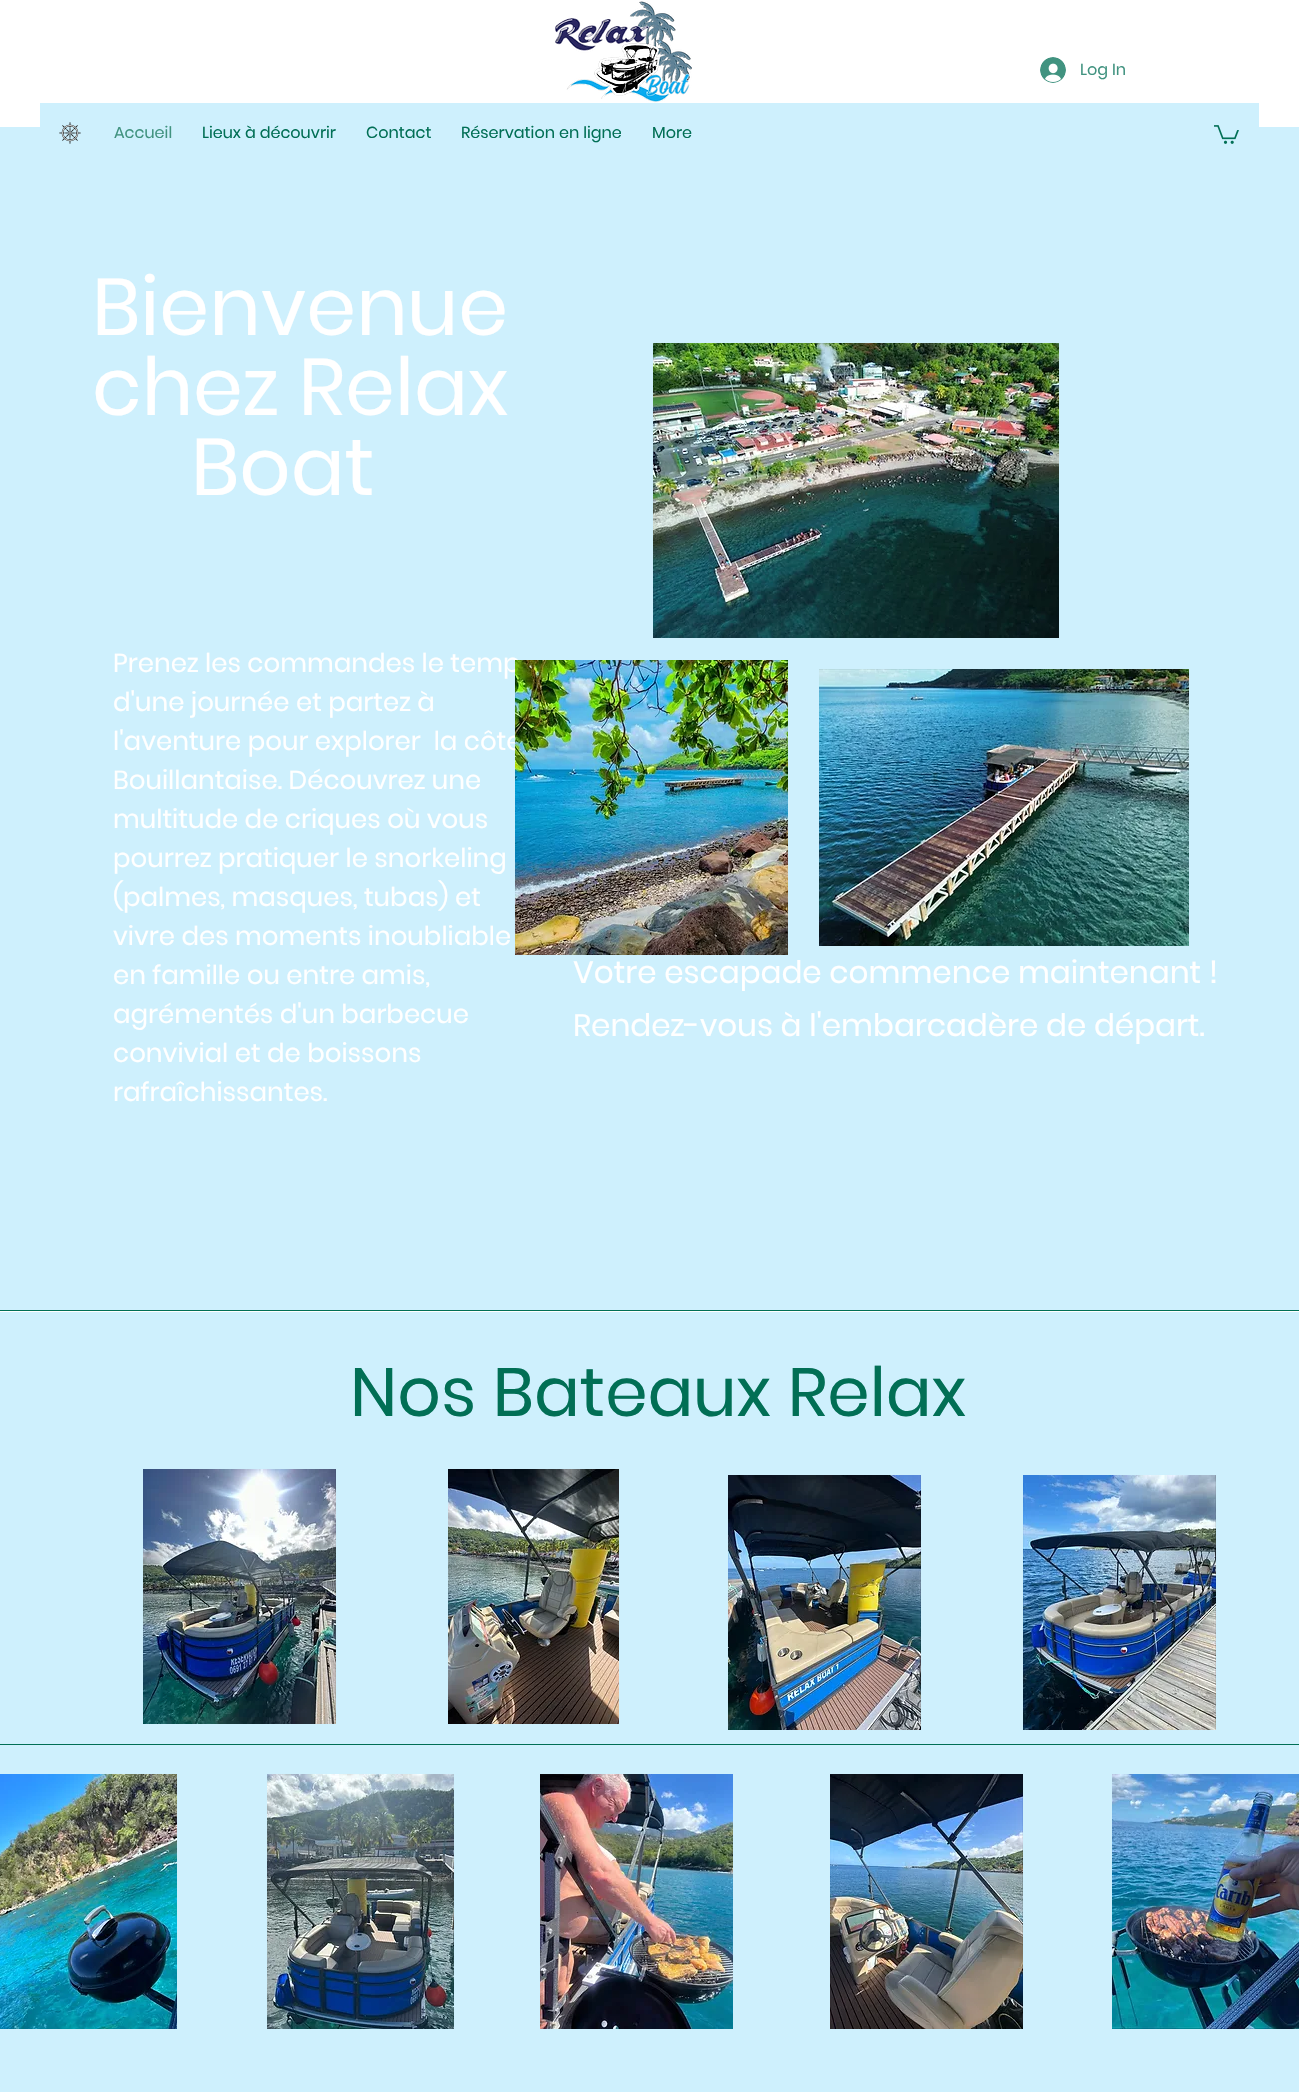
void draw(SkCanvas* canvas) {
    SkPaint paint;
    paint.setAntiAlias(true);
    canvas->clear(0xFFFFFFFF);
    canvas->drawImageRect(SkImages::DeferredFromEncodedData(SkData::MakeFromFileName("img1.png")), SkRect::MakeXYWH(555, 1, 137, 102), SkSamplingOptions());
    canvas->drawImageRect(SkImages::DeferredFromEncodedData(SkData::MakeFromFileName("img2.png")), SkRect::MakeXYWH(1040, 57, 26, 26), SkSamplingOptions());
    SkFont font1(fontMgr->matchFamilyStyle("Poppins", SkFontStyle::Normal()), 16);
    font1.setSubpixel(true);
    paint.setColor(0xFF419380);
    canvas->drawString("Log In", 1080, 75, font1, paint);
    paint.setColor(0xFFCEF0FD);
    canvas->drawRect(SkRect::MakeXYWH(40, 103, 1219, 24), paint);
    canvas->drawRect(SkRect::MakeXYWH(0, 127, 1299, 1183), paint);
    canvas->drawImageRect(SkImages::DeferredFromEncodedData(SkData::MakeFromFileName("img3.png")), SkRect::MakeXYWH(59, 122, 22, 22), SkSamplingOptions());
    paint.setColor(0xFF419380);
    canvas->drawString("Accueil", 114, 138, font1, paint);
    paint.setColor(0xFF016F55);
    canvas->drawString("Lieux à découvrir", 202, 138, font1, paint);
    canvas->drawString("Contact", 366, 138, font1, paint);
    canvas->drawString("Réservation en ligne", 461, 138, font1, paint);
    canvas->drawString("More", 652, 138, font1, paint);
    canvas->drawImageRect(SkImages::DeferredFromEncodedData(SkData::MakeFromFileName("img4.png")), SkRect::MakeXYWH(1214, 125, 25, 19), SkSamplingOptions());
    SkFont font2(fontMgr->matchFamilyStyle("Poppins", SkFontStyle::Normal()), 80);
    font2.setSubpixel(true);
    paint.setColor(0xFFFFFFFF);
    canvas->drawString("Bienvenue", 92, 335, font2, paint);
    canvas->drawString("chez Relax", 92, 415, font2, paint);
    canvas->drawString("Boat", 191, 495, font2, paint);
    SkFont font3(fontMgr->matchFamilyStyle("Poppins", SkFontStyle::Normal()), 26);
    font3.setSubpixel(true);
    canvas->drawString("Prenez les commandes le temp", 113, 672, font3, paint);
    canvas->drawString("d'une journée et partez à", 113, 711, font3, paint);
    canvas->drawString("l'aventure pour explorer  la côte", 113, 750, font3, paint);
    canvas->drawString("Bouillantaise. Découvrez une", 113, 789, font3, paint);
    canvas->drawString("multitude de criques où vous", 113, 828, font3, paint);
    canvas->drawString("pourrez pratiquer le snorkeling", 113, 867, font3, paint);
    canvas->drawString("(palmes, masques, tubas) et", 113, 906, font3, paint);
    canvas->drawString("vivre des moments inoubliable", 113, 945, font3, paint);
    canvas->drawString("en famille ou entre amis,", 113, 984, font3, paint);
    canvas->drawString("agrémentés d'un barbecue", 113, 1023, font3, paint);
    canvas->drawString("convivial et de boissons", 113, 1062, font3, paint);
    canvas->drawString("rafraîchissantes.", 113, 1101, font3, paint);
    canvas->drawImageRect(SkImages::DeferredFromEncodedData(SkData::MakeFromFileName("img5.png")), SkRect::MakeXYWH(653, 343, 406, 295), SkSamplingOptions());
    canvas->drawImageRect(SkImages::DeferredFromEncodedData(SkData::MakeFromFileName("img6.png")), SkRect::MakeXYWH(515, 660, 273, 295), SkSamplingOptions());
    canvas->drawImageRect(SkImages::DeferredFromEncodedData(SkData::MakeFromFileName("img7.png")), SkRect::MakeXYWH(819, 669, 370, 277), SkSamplingOptions());
    SkFont font4(fontMgr->matchFamilyStyle("Poppins", SkFontStyle::Normal()), 31);
    font4.setSubpixel(true);
    canvas->drawString("Votre escapade commence maintenant !", 573, 983, font4, paint);
    canvas->drawString("Rendez-vous à l'embarcadère de départ.", 573, 1036, font4, paint);
    paint.setColor(0xFF016F55);
    canvas->drawRect(SkRect::MakeXYWH(0, 1310, 1299, 1), paint);
    paint.setColor(0xFFCEF0FD);
    canvas->drawRect(SkRect::MakeXYWH(0, 1312, 1299, 780), paint);
    SkFont font5(fontMgr->matchFamilyStyle("Poppins", SkFontStyle::Normal()), 68);
    font5.setSubpixel(true);
    paint.setColor(0xFF016F55);
    canvas->drawString("Nos Bateaux Relax", 350, 1416, font5, paint);
    canvas->drawImageRect(SkImages::DeferredFromEncodedData(SkData::MakeFromFileName("img8.png")), SkRect::MakeXYWH(143, 1469, 193, 255), SkSamplingOptions());
    canvas->drawImageRect(SkImages::DeferredFromEncodedData(SkData::MakeFromFileName("img9.png")), SkRect::MakeXYWH(448, 1469, 171, 255), SkSamplingOptions());
    canvas->drawImageRect(SkImages::DeferredFromEncodedData(SkData::MakeFromFileName("img10.png")), SkRect::MakeXYWH(728, 1475, 193, 255), SkSamplingOptions());
    canvas->drawImageRect(SkImages::DeferredFromEncodedData(SkData::MakeFromFileName("img11.png")), SkRect::MakeXYWH(1023, 1475, 193, 255), SkSamplingOptions());
    canvas->drawRect(SkRect::MakeXYWH(0, 1744, 1299, 1), paint);
    canvas->drawImageRect(SkImages::DeferredFromEncodedData(SkData::MakeFromFileName("img12.png")), SkRect::MakeXYWH(0, 1774, 177, 255), SkSamplingOptions());
    canvas->drawImageRect(SkImages::DeferredFromEncodedData(SkData::MakeFromFileName("img13.png")), SkRect::MakeXYWH(267, 1774, 187, 255), SkSamplingOptions());
    canvas->drawImageRect(SkImages::DeferredFromEncodedData(SkData::MakeFromFileName("img14.png")), SkRect::MakeXYWH(540, 1774, 193, 255), SkSamplingOptions());
    canvas->drawImageRect(SkImages::DeferredFromEncodedData(SkData::MakeFromFileName("img15.png")), SkRect::MakeXYWH(830, 1774, 193, 255), SkSamplingOptions());
    canvas->drawImageRect(SkImages::DeferredFromEncodedData(SkData::MakeFromFileName("img16.png")), SkRect::MakeXYWH(1112, 1774, 187, 255), SkSamplingOptions());
}
